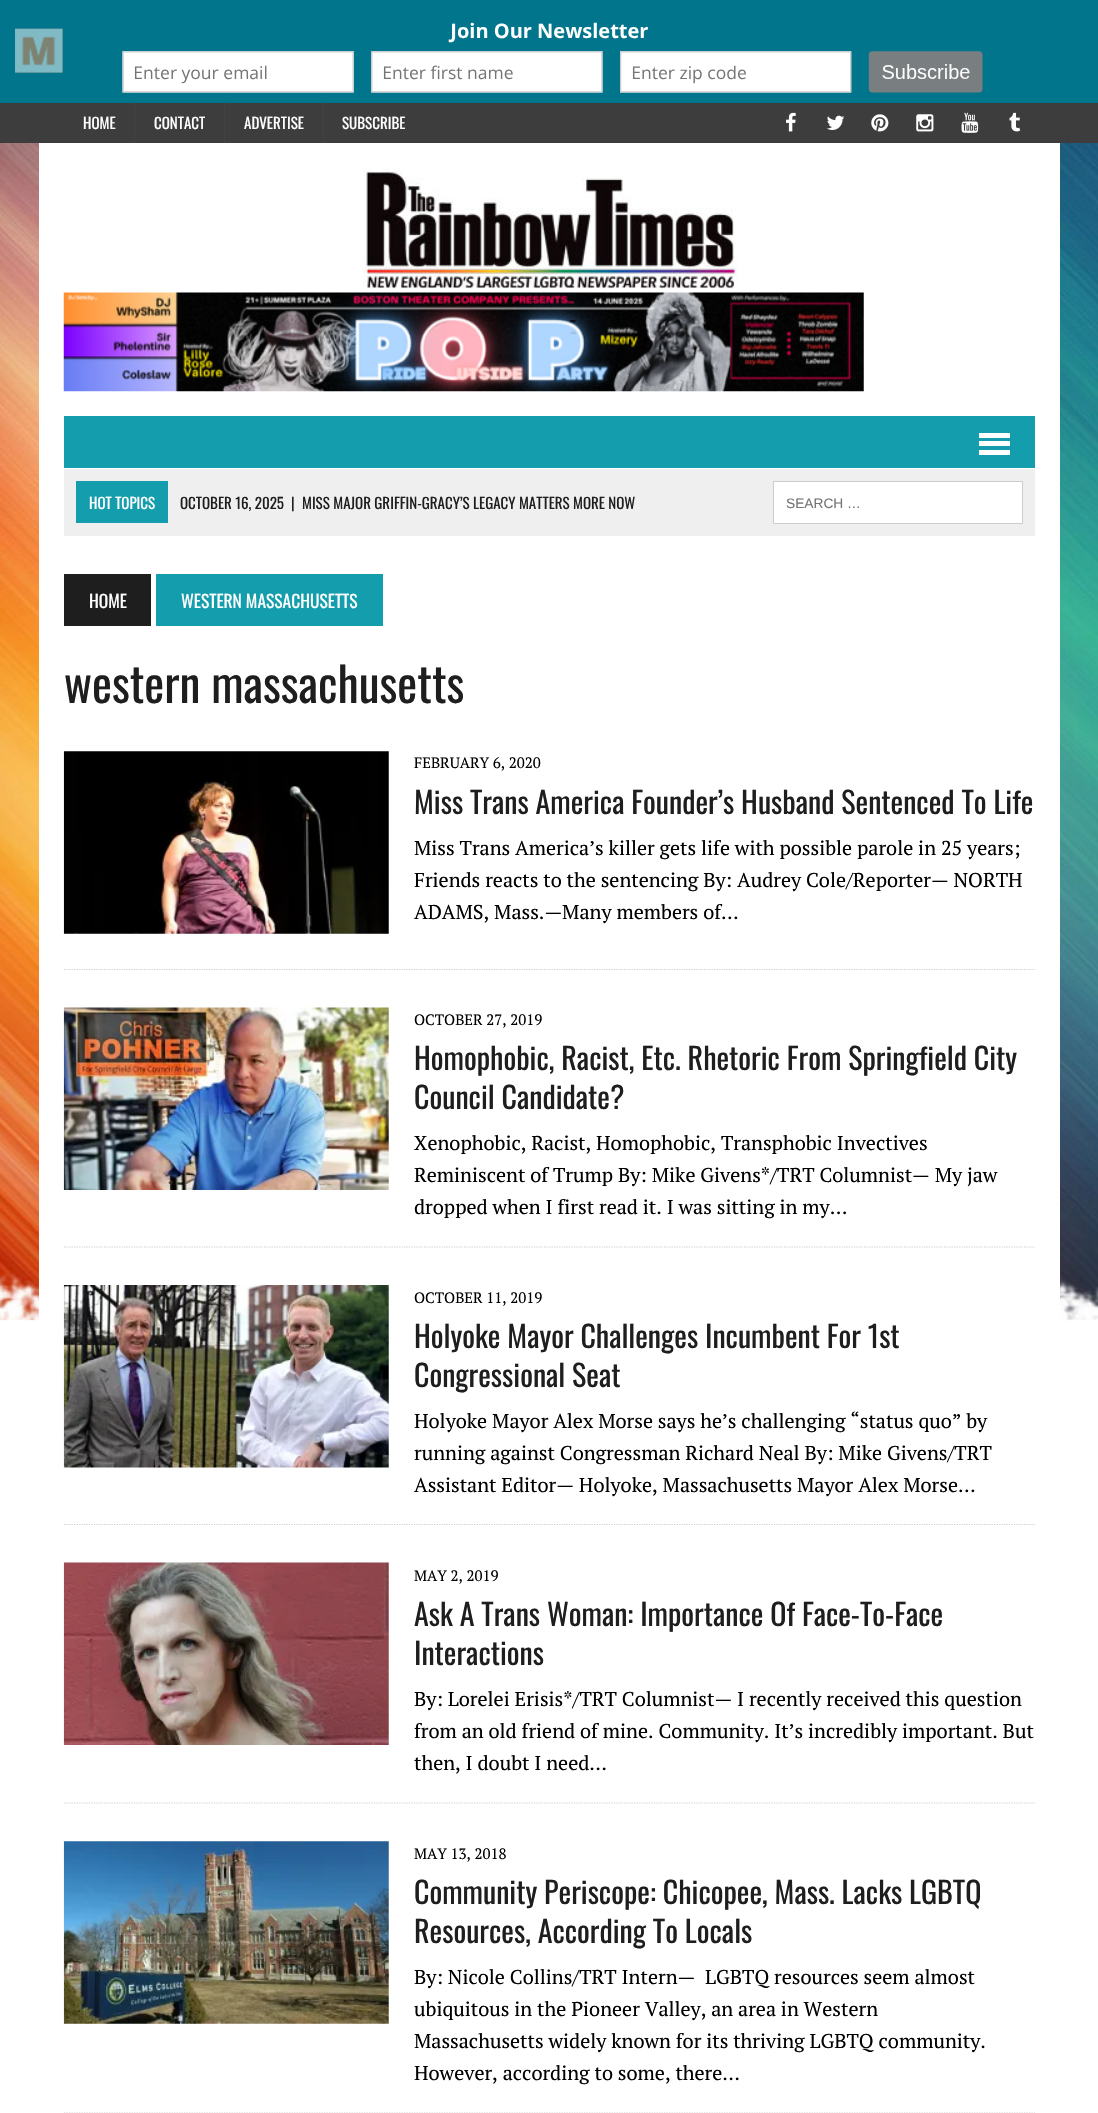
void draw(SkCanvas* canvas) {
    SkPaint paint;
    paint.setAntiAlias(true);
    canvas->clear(0xFFFFFFFF);
    canvas->drawImageRect(SkImages::DeferredFromEncodedData(SkData::MakeFromFileName("img1.png")), SkRect::MakeXYWH(0, 143, 1098, 1178), SkSamplingOptions());
    canvas->drawImageRect(SkImages::DeferredFromEncodedData(SkData::MakeFromFileName("img2.png")), SkRect::MakeXYWH(0, 0, 1098, 103), SkSamplingOptions());
    paint.setColor(0xFF3D3D3D);
    canvas->drawRect(SkRect::MakeXYWH(0, 103, 1098, 40), paint);
    SkFont font1(fontMgr->matchFamilyStyle("Oswald", SkFontStyle::Normal()), 15);
    font1.setSubpixel(true);
    paint.setColor(0xFFFFFFFF);
    canvas->drawString("HOME", 83, 129, font1, paint);
    paint.setColor(0xFF424242);
    canvas->drawRect(SkRect::MakeXYWH(134, 103, 1, 40), paint);
    paint.setColor(0xFFFFFFFF);
    canvas->drawString("CONTACT", 154, 129, font1, paint);
    paint.setColor(0xFF424242);
    canvas->drawRect(SkRect::MakeXYWH(224, 103, 1, 40), paint);
    paint.setColor(0xFFFFFFFF);
    canvas->drawString("ADVERTISE", 244, 129, font1, paint);
    paint.setColor(0xFF424242);
    canvas->drawRect(SkRect::MakeXYWH(323, 103, 1, 40), paint);
    paint.setColor(0xFFFFFFFF);
    canvas->drawString("SUBSCRIBE", 342, 129, font1, paint);
    canvas->drawImageRect(SkImages::DeferredFromEncodedData(SkData::MakeFromFileName("img3.png")), SkRect::MakeXYWH(786, 112, 10, 20), SkSamplingOptions());
    canvas->drawImageRect(SkImages::DeferredFromEncodedData(SkData::MakeFromFileName("img4.png")), SkRect::MakeXYWH(827, 115, 18, 15), SkSamplingOptions());
    canvas->drawImageRect(SkImages::DeferredFromEncodedData(SkData::MakeFromFileName("img5.png")), SkRect::MakeXYWH(871, 114, 18, 18), SkSamplingOptions());
    canvas->drawImageRect(SkImages::DeferredFromEncodedData(SkData::MakeFromFileName("img6.png")), SkRect::MakeXYWH(916, 114, 18, 18), SkSamplingOptions());
    canvas->drawImageRect(SkImages::DeferredFromEncodedData(SkData::MakeFromFileName("img7.png")), SkRect::MakeXYWH(961, 112, 18, 21), SkSamplingOptions());
    canvas->drawImageRect(SkImages::DeferredFromEncodedData(SkData::MakeFromFileName("img8.png")), SkRect::MakeXYWH(1009, 112, 12, 20), SkSamplingOptions());
    canvas->drawRect(SkRect::MakeXYWH(39, 143, 1021, 1178), paint);
    canvas->drawImageRect(SkImages::DeferredFromEncodedData(SkData::MakeFromFileName("img9.png")), SkRect::MakeXYWH(362, 168, 376, 121), SkSamplingOptions());
    canvas->drawImageRect(SkImages::DeferredFromEncodedData(SkData::MakeFromFileName("img10.png")), SkRect::MakeXYWH(63, 292, 801, 100), SkSamplingOptions());
    paint.setColor(0xFF139DAD);
    canvas->drawRect(SkRect::MakeXYWH(64, 416, 971, 52), paint);
    paint.setColor(0xFFFFFFFF);
    canvas->drawRect(SkRect::MakeXYWH(979, 433, 31, 5), paint);
    canvas->drawRect(SkRect::MakeXYWH(979, 441, 31, 5), paint);
    canvas->drawRect(SkRect::MakeXYWH(979, 450, 31, 5), paint);
    paint.setColor(0xFFEFEFEF);
    canvas->drawRect(SkRect::MakeXYWH(64, 469, 971, 67), paint);
    paint.setColor(0xFF139DAD);
    canvas->drawRect(SkRect::MakeXYWH(76, 481, 92, 42), paint);
    paint.setColor(0xFFFFFFFF);
    canvas->drawString("HOT TOPICS", 89, 509, font1, paint);
    paint.setColor(0xFF1F1E1E);
    canvas->drawString("OCTOBER 16, 2025", 180, 509, font1, paint);
    canvas->drawString("|", 291, 509, font1, paint);
    canvas->drawString("MISS MAJOR GRIFFIN-GRACY’S LEGACY MATTERS MORE NOW", 302, 509, font1, paint);
    paint.setColor(0xFFFFFFFF);
    canvas->drawRect(SkRect::MakeXYWH(773.5f, 481.5f, 249, 42), paint);
    paint.setStyle(SkPaint::kStroke_Style);
    paint.setStrokeWidth(1);
    paint.setColor(0xFFCDCDCD);
    canvas->drawRect(SkRect::MakeXYWH(773.5f, 481.5f, 249, 42), paint);
    SkFont font2(fontMgr->matchFamilyStyle("Liberation Sans", SkFontStyle::Normal()), 13.75f);
    font2.setSubpixel(true);
    paint.setStyle(SkPaint::kFill_Style);
    paint.setColor(0xFF757575);
    canvas->drawString("SEARCH …", 786, 508, font2, paint);
    paint.setColor(0xFF1F1E1E);
    canvas->drawRect(SkRect::MakeXYWH(64, 574, 87, 52), paint);
    SkFont font3(fontMgr->matchFamilyStyle("Oswald", SkFontStyle::Normal()), 17.5f);
    font3.setSubpixel(true);
    paint.setColor(0xFFFFFFFF);
    canvas->drawString("HOME", 89, 608, font3, paint);
    paint.setColor(0xFF139DAD);
    canvas->drawRect(SkRect::MakeXYWH(156, 574, 227, 52), paint);
    paint.setColor(0xFFFFFFFF);
    canvas->drawString("WESTERN MASSACHUSETTS", 181, 608, font3, paint);
    SkFont font4(fontMgr->matchFamilyStyle("Oswald", SkFontStyle::Normal()), 47.5f);
    font4.setSubpixel(true);
    paint.setColor(0xFF1F1E1E);
    canvas->drawString("western massachusetts", 64, 703, font4, paint);
    canvas->drawImageRect(SkImages::DeferredFromEncodedData(SkData::MakeFromFileName("img11.png")), SkRect::MakeXYWH(63, 751, 326, 183), SkSamplingOptions());
    SkFont font5(fontMgr->matchFamilyStyle("PT Serif", SkFontStyle::Normal()), 15);
    font5.setSubpixel(true);
    paint.setColor(0xFF000000);
    canvas->drawString("FEBRUARY 6, 2020", 414, 768, font5, paint);
    SkFont font6(fontMgr->matchFamilyStyle("Oswald", SkFontStyle::Normal()), 30);
    font6.setSubpixel(true);
    paint.setColor(0xFF1F1E1E);
    canvas->drawString("Miss Trans America Founder’s Husband Sentenced To Life", 414, 814, font6, paint);
    SkFont font7(fontMgr->matchFamilyStyle("PT Serif", SkFontStyle::Normal()), 20);
    font7.setSubpixel(true);
    paint.setColor(0xFF000000);
    canvas->drawString("Miss Trans America’s killer gets life with possible parole in 25 years;", 414, 855, font7, paint);
    canvas->drawString("Friends reacts to the sentencing By: Audrey Cole/Reporter— NORTH", 414, 887, font7, paint);
    canvas->drawString("ADAMS, Mass.—Many members of…", 414, 919, font7, paint);
    paint.setStyle(SkPaint::kStroke_Style);
    paint.setStrokeWidth(1.2f);
    paint.setColor(0xFFCDCDCD);
    paint.setPathEffect(SkDashPathEffect::Make({{1.25f, 1.25f}}, 0));
    canvas->drawPath(SkPathBuilder().moveTo(64, 969.5f).lineTo(1035, 969.5f).detach(), paint);
    paint.setPathEffect(nullptr);
    canvas->drawImageRect(SkImages::DeferredFromEncodedData(SkData::MakeFromFileName("img12.png")), SkRect::MakeXYWH(63, 1007, 326, 183), SkSamplingOptions());
    paint.setStyle(SkPaint::kFill_Style);
    paint.setColor(0xFF000000);
    canvas->drawString("OCTOBER 27, 2019", 414, 1025, font5, paint);
    paint.setColor(0xFF1F1E1E);
    canvas->drawString("Homophobic, Racist, Etc. Rhetoric From Springfield City", 414, 1070, font6, paint);
    canvas->drawString("Council Candidate?", 414, 1109, font6, paint);
    paint.setColor(0xFF000000);
    canvas->drawString("Xenophobic, Racist, Homophobic, Transphobic Invectives", 414, 1150, font7, paint);
    canvas->drawString("Reminiscent of Trump By: Mike Givens*/TRT Columnist— My jaw", 414, 1182, font7, paint);
    canvas->drawString("dropped when I first read it. I was sitting in my…", 414, 1214, font7, paint);
    paint.setStyle(SkPaint::kStroke_Style);
    paint.setColor(0xFFCDCDCD);
    paint.setPathEffect(SkDashPathEffect::Make({{1.25f, 1.25f}}, 0));
    canvas->drawPath(SkPathBuilder().moveTo(64, 1247).lineTo(1035, 1247).detach(), paint);
    paint.setPathEffect(nullptr);
    canvas->drawImageRect(SkImages::DeferredFromEncodedData(SkData::MakeFromFileName("img13.png")), SkRect::MakeXYWH(63, 1285, 326, 183), SkSamplingOptions());
    paint.setStyle(SkPaint::kFill_Style);
    paint.setColor(0xFF000000);
    canvas->drawString("OCTOBER 11, 2019", 414, 1303, font5, paint);
    paint.setColor(0xFF1F1E1E);
    canvas->drawString("Holyoke Mayor Challenges Incumbent For 1st", 414, 1348, font6, paint);
    canvas->drawString("Congressional Seat", 414, 1387, font6, paint);
    paint.setColor(0xFF000000);
    canvas->drawString("Holyoke Mayor Alex Morse says he’s challenging “status quo” by", 414, 1428, font7, paint);
    canvas->drawString("running against Congressman Richard Neal By: Mike Givens/TRT", 414, 1460, font7, paint);
    canvas->drawString("Assistant Editor— Holyoke, Massachusetts Mayor Alex Morse…", 414, 1492, font7, paint);
    paint.setStyle(SkPaint::kStroke_Style);
    paint.setColor(0xFFCDCDCD);
    paint.setPathEffect(SkDashPathEffect::Make({{1.25f, 1.25f}}, 0));
    canvas->drawPath(SkPathBuilder().moveTo(64, 1524.5f).lineTo(1035, 1524.5f).detach(), paint);
    paint.setPathEffect(nullptr);
    canvas->drawImageRect(SkImages::DeferredFromEncodedData(SkData::MakeFromFileName("img14.png")), SkRect::MakeXYWH(63, 1562, 326, 183), SkSamplingOptions());
    paint.setStyle(SkPaint::kFill_Style);
    paint.setColor(0xFF000000);
    canvas->drawString("MAY 2, 2019", 414, 1581, font5, paint);
    paint.setColor(0xFF1F1E1E);
    canvas->drawString("Ask A Trans Woman: Importance Of Face-To-Face", 414, 1626, font6, paint);
    canvas->drawString("Interactions", 414, 1665, font6, paint);
    paint.setColor(0xFF000000);
    canvas->drawString("By: Lorelei Erisis*/TRT Columnist— I recently received this question", 414, 1706, font7, paint);
    canvas->drawString("from an old friend of mine. Community. It’s incredibly important. But", 414, 1738, font7, paint);
    canvas->drawString("then, I doubt I need…", 414, 1770, font7, paint);
    paint.setStyle(SkPaint::kStroke_Style);
    paint.setColor(0xFFCDCDCD);
    paint.setPathEffect(SkDashPathEffect::Make({{1.25f, 1.25f}}, 0));
    canvas->drawPath(SkPathBuilder().moveTo(64, 1803).lineTo(1035, 1803).detach(), paint);
    paint.setPathEffect(nullptr);
    canvas->drawImageRect(SkImages::DeferredFromEncodedData(SkData::MakeFromFileName("img15.png")), SkRect::MakeXYWH(63, 1841, 326, 183), SkSamplingOptions());
    paint.setStyle(SkPaint::kFill_Style);
    paint.setColor(0xFF000000);
    canvas->drawString("MAY 13, 2018", 414, 1859, font5, paint);
    paint.setColor(0xFF1F1E1E);
    canvas->drawString("Community Periscope: Chicopee, Mass. Lacks LGBTQ", 414, 1904, font6, paint);
    canvas->drawString("Resources, According To Locals", 414, 1943, font6, paint);
    paint.setColor(0xFF000000);
    canvas->drawString("By: Nicole Collins/TRT Intern—  LGBTQ resources seem almost", 414, 1984, font7, paint);
    canvas->drawString("ubiquitous in the Pioneer Valley, an area in Western", 414, 2016, font7, paint);
    canvas->drawString("Massachusetts widely known for its thriving LGBTQ community.", 414, 2048, font7, paint);
    canvas->drawString("However, according to some, there…", 414, 2080, font7, paint);
    paint.setStyle(SkPaint::kStroke_Style);
    paint.setColor(0xFFCDCDCD);
    paint.setPathEffect(SkDashPathEffect::Make({{1.25f, 1.25f}}, 0));
    canvas->drawPath(SkPathBuilder().moveTo(64, 2113).lineTo(1035, 2113).detach(), paint);
    paint.setPathEffect(nullptr);
}
